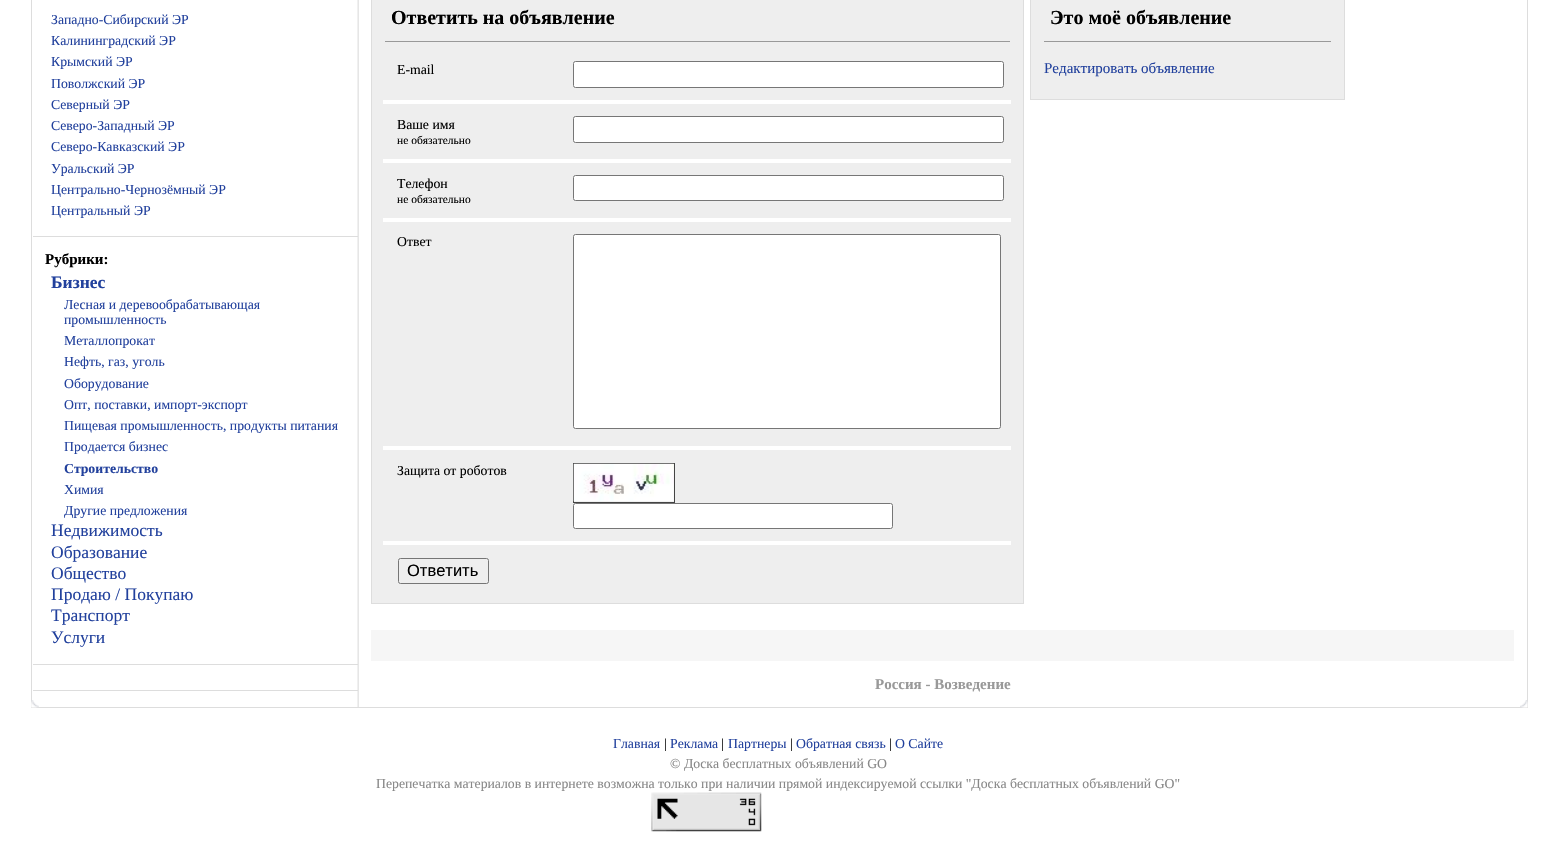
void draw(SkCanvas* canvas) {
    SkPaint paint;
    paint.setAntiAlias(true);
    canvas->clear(0xFFFFFFFF);
    canvas->drawImageRect(SkImages::DeferredFromEncodedData(SkData::MakeFromFileName("img1.png")), SkRect::MakeXYWH(357, 0, 2, 707), SkSamplingOptions());
    paint.setStyle(SkPaint::kStroke_Style);
    paint.setStrokeWidth(1);
    paint.setColor(0xFFDDDDDD);
    canvas->drawRect(SkRect::MakeXYWH(31.5f, -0.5f, 1496, 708), paint);
    paint.setStyle(SkPaint::kFill_Style);
    canvas->drawRect(SkRect::MakeXYWH(33, 236, 325, 1), paint);
    SkFont font1(fontMgr->matchFamilyStyle("Liberation Serif", SkFontStyle::Normal()), 13.75f);
    font1.setSubpixel(true);
    paint.setColor(0xFF22419D);
    canvas->drawString("Западно-Сибирский ЭР", 51, 24, font1, paint);
    canvas->drawString("Калининградский ЭР", 51, 45, font1, paint);
    canvas->drawString("Крымский ЭР", 51, 66, font1, paint);
    canvas->drawString("Поволжский ЭР", 51, 88, font1, paint);
    canvas->drawString("Северный ЭР", 51, 109, font1, paint);
    canvas->drawString("Северо-Западный ЭР", 51, 130, font1, paint);
    canvas->drawString("Северо-Кавказский ЭР", 51, 151, font1, paint);
    canvas->drawString("Уральский ЭР", 51, 173, font1, paint);
    canvas->drawString("Центрально-Чернозёмный ЭР", 51, 194, font1, paint);
    canvas->drawString("Центральный ЭР", 51, 215, font1, paint);
    paint.setColor(0xFFDDDDDD);
    canvas->drawRect(SkRect::MakeXYWH(33, 664, 325, 1), paint);
    SkFont font2(fontMgr->matchFamilyStyle("Liberation Serif", SkFontStyle::Bold()), 15);
    font2.setSubpixel(true);
    paint.setColor(0xFF000000);
    canvas->drawString("Рубрики:", 45, 264, font2, paint);
    SkFont font3(fontMgr->matchFamilyStyle("Liberation Serif", SkFontStyle::Bold()), 17.5f);
    font3.setSubpixel(true);
    paint.setColor(0xFF22419D);
    canvas->drawString("Бизнес", 51, 288, font3, paint);
    canvas->drawString("Лесная и деревообрабатывающая", 64, 309, font1, paint);
    canvas->drawString("промышленность", 64, 324, font1, paint);
    canvas->drawString("Металлопрокат", 64, 345, font1, paint);
    canvas->drawString("Нефть, газ, уголь", 64, 366, font1, paint);
    canvas->drawString("Оборудование", 64, 388, font1, paint);
    canvas->drawString("Опт, поставки, импорт-экспорт", 64, 409, font1, paint);
    canvas->drawString("Пищевая промышленность, продукты питания", 64, 430, font1, paint);
    canvas->drawString("Продается бизнес", 64, 451, font1, paint);
    SkFont font4(fontMgr->matchFamilyStyle("Liberation Serif", SkFontStyle::Bold()), 13.75f);
    font4.setSubpixel(true);
    canvas->drawString("Строительство", 64, 473, font4, paint);
    canvas->drawString("Химия", 64, 494, font1, paint);
    canvas->drawString("Другие предложения", 64, 515, font1, paint);
    SkFont font5(fontMgr->matchFamilyStyle("Liberation Serif", SkFontStyle::Normal()), 17.5f);
    font5.setSubpixel(true);
    canvas->drawString("Недвижимость", 51, 536, font5, paint);
    canvas->drawString("Образование", 51, 558, font5, paint);
    canvas->drawString("Общество", 51, 579, font5, paint);
    canvas->drawString("Продаю / Покупаю", 51, 600, font5, paint);
    canvas->drawString("Транспорт", 51, 621, font5, paint);
    canvas->drawString("Услуги", 51, 643, font5, paint);
    paint.setColor(0xFFDDDDDD);
    canvas->drawRect(SkRect::MakeXYWH(33, 690, 325, 1), paint);
    paint.setColor(0xFFEEEEEE);
    canvas->drawRect(SkRect::MakeXYWH(371.5f, -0.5f, 652, 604), paint);
    paint.setStyle(SkPaint::kStroke_Style);
    paint.setColor(0xFFDDDDDD);
    canvas->drawRect(SkRect::MakeXYWH(371.5f, -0.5f, 652, 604), paint);
    paint.setStyle(SkPaint::kFill_Style);
    paint.setColor(0xFF999999);
    canvas->drawRect(SkRect::MakeXYWH(385, 41, 625, 1), paint);
    SkFont font6(fontMgr->matchFamilyStyle("Liberation Serif", SkFontStyle::Bold()), 20);
    font6.setSubpixel(true);
    paint.setColor(0xFF000000);
    canvas->drawString("Ответить на объявление", 391, 24, font6, paint);
    paint.setColor(0xFFFFFFFF);
    canvas->drawRect(SkRect::MakeXYWH(383, 100, 628, 4), paint);
    paint.setColor(0xFF000000);
    canvas->drawString("E-mail", 397, 74, font1, paint);
    paint.setColor(0xFFFFFFFF);
    canvas->drawRoundRect(SkRect::MakeXYWH(573.5f, 61.5f, 430, 26), 2, 2, paint);
    paint.setStyle(SkPaint::kStroke_Style);
    paint.setColor(0xFF767676);
    canvas->drawRoundRect(SkRect::MakeXYWH(573.5f, 61.5f, 430, 26), 2, 2, paint);
    paint.setStyle(SkPaint::kFill_Style);
    paint.setColor(0xFFFFFFFF);
    canvas->drawRect(SkRect::MakeXYWH(383, 159, 628, 4), paint);
    paint.setColor(0xFF000000);
    canvas->drawString("Ваше имя", 397, 129, font1, paint);
    SkFont font7(fontMgr->matchFamilyStyle("Liberation Serif", SkFontStyle::Normal()), 11.5f);
    font7.setSubpixel(true);
    canvas->drawString("не обязательно", 397, 144, font7, paint);
    paint.setColor(0xFFFFFFFF);
    canvas->drawRoundRect(SkRect::MakeXYWH(573.5f, 116.5f, 430, 26), 2, 2, paint);
    paint.setStyle(SkPaint::kStroke_Style);
    paint.setColor(0xFF767676);
    canvas->drawRoundRect(SkRect::MakeXYWH(573.5f, 116.5f, 430, 26), 2, 2, paint);
    paint.setStyle(SkPaint::kFill_Style);
    paint.setColor(0xFFFFFFFF);
    canvas->drawRect(SkRect::MakeXYWH(383, 218, 628, 4), paint);
    paint.setColor(0xFF000000);
    canvas->drawString("Телефон", 397, 188, font1, paint);
    canvas->drawString("не обязательно", 397, 203, font7, paint);
    paint.setColor(0xFFFFFFFF);
    canvas->drawRoundRect(SkRect::MakeXYWH(573.5f, 175.5f, 430, 25), 2, 2, paint);
    paint.setStyle(SkPaint::kStroke_Style);
    paint.setColor(0xFF767676);
    canvas->drawRoundRect(SkRect::MakeXYWH(573.5f, 175.5f, 430, 25), 2, 2, paint);
    paint.setStyle(SkPaint::kFill_Style);
    paint.setColor(0xFFFFFFFF);
    canvas->drawRect(SkRect::MakeXYWH(383, 446, 628, 4), paint);
    paint.setColor(0xFF000000);
    canvas->drawString("Ответ", 397, 246, font1, paint);
    paint.setColor(0xFFFFFFFF);
    canvas->drawRoundRect(SkRect::MakeXYWH(573.5f, 234.5f, 427, 194), 2, 2, paint);
    paint.setStyle(SkPaint::kStroke_Style);
    paint.setColor(0xFF767676);
    canvas->drawRoundRect(SkRect::MakeXYWH(573.5f, 234.5f, 427, 194), 2, 2, paint);
    paint.setStyle(SkPaint::kFill_Style);
    paint.setColor(0xFFFFFFFF);
    canvas->drawRect(SkRect::MakeXYWH(383, 541, 628, 4), paint);
    paint.setColor(0xFF000000);
    canvas->drawString("Защита от роботов", 397, 475, font1, paint);
    paint.setStyle(SkPaint::kStroke_Style);
    paint.setColor(0xFF444444);
    canvas->drawRect(SkRect::MakeXYWH(573.5f, 463.5f, 101, 39), paint);
    canvas->drawImageRect(SkImages::DeferredFromEncodedData(SkData::MakeFromFileName("img2.png")), SkRect::MakeXYWH(573, 463, 101, 39), SkSamplingOptions());
    paint.setStyle(SkPaint::kFill_Style);
    paint.setColor(0xFFFFFFFF);
    canvas->drawRoundRect(SkRect::MakeXYWH(573.5f, 503.5f, 319, 25), 2, 2, paint);
    paint.setStyle(SkPaint::kStroke_Style);
    paint.setColor(0xFF767676);
    canvas->drawRoundRect(SkRect::MakeXYWH(573.5f, 503.5f, 319, 25), 2, 2, paint);
    canvas->drawRoundRect(SkRect::MakeXYWH(398.5f, 558.5f, 90, 25), 2, 2, paint);
    SkFont font8(fontMgr->matchFamilyStyle("Liberation Sans", SkFontStyle::Normal()), 16.5f);
    font8.setSubpixel(true);
    paint.setStyle(SkPaint::kFill_Style);
    paint.setColor(0xFF000000);
    canvas->drawString("Ответить", 407, 576, font8, paint);
    paint.setColor(0xFFEEEEEE);
    canvas->drawRect(SkRect::MakeXYWH(1030.5f, -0.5f, 314, 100), paint);
    paint.setStyle(SkPaint::kStroke_Style);
    paint.setColor(0xFFDDDDDD);
    canvas->drawRect(SkRect::MakeXYWH(1030.5f, -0.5f, 314, 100), paint);
    paint.setStyle(SkPaint::kFill_Style);
    paint.setColor(0xFF999999);
    canvas->drawRect(SkRect::MakeXYWH(1044, 41, 287, 1), paint);
    paint.setColor(0xFF000000);
    canvas->drawString("Это моё объявление", 1050, 24, font6, paint);
    SkFont font9(fontMgr->matchFamilyStyle("Liberation Serif", SkFontStyle::Normal()), 15);
    font9.setSubpixel(true);
    paint.setColor(0xFF22419D);
    canvas->drawString("Редактировать объявление", 1044, 73, font9, paint);
    paint.setColor(0xFFF6F6F6);
    canvas->drawRect(SkRect::MakeXYWH(371, 630, 1143, 31), paint);
    paint.setColor(0xFF999999);
    canvas->drawString("Россия - Возведение", 875, 689, font2, paint);
    canvas->drawImageRect(SkImages::DeferredFromEncodedData(SkData::MakeFromFileName("img3.png")), SkRect::MakeXYWH(31, 700, 8, 8), SkSamplingOptions());
    canvas->drawImageRect(SkImages::DeferredFromEncodedData(SkData::MakeFromFileName("img4.png")), SkRect::MakeXYWH(1520, 700, 8, 8), SkSamplingOptions());
    paint.setColor(0xFF22419D);
    canvas->drawString("Главная", 613, 748, font1, paint);
    paint.setColor(0xFF000000);
    canvas->drawString("|", 664, 748, font1, paint);
    paint.setColor(0xFF22419D);
    canvas->drawString("Реклама", 670, 748, font1, paint);
    paint.setColor(0xFF000000);
    canvas->drawString("|", 721, 748, font1, paint);
    paint.setColor(0xFF22419D);
    canvas->drawString("Партнеры", 728, 748, font1, paint);
    paint.setColor(0xFF000000);
    canvas->drawString("|", 790, 748, font1, paint);
    paint.setColor(0xFF22419D);
    canvas->drawString("Обратная связь", 796, 748, font1, paint);
    paint.setColor(0xFF000000);
    canvas->drawString("|", 889, 748, font1, paint);
    paint.setColor(0xFF22419D);
    canvas->drawString("О Сайте", 895, 748, font1, paint);
    paint.setColor(0xFF888888);
    canvas->drawString("© Доска бесплатных объявлений GO", 670, 768, font1, paint);
    canvas->drawString("Перепечатка материалов в интернете возможна только при наличии прямой индексируемой ссылки \"Доска бесплатных объявлений GO\"", 376, 788, font1, paint);
    canvas->drawImageRect(SkImages::DeferredFromEncodedData(SkData::MakeFromFileName("img5.png")), SkRect::MakeXYWH(651, 792, 111, 40), SkSamplingOptions());
}
